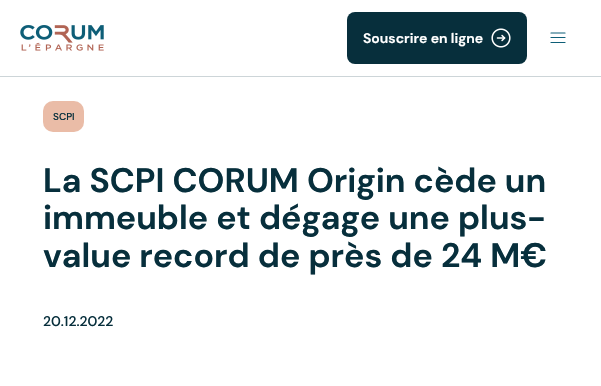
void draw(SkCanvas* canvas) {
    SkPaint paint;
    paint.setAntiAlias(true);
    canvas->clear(0xFFFFFFFF);
    paint.setColor(0xFFCDD5D8);
    canvas->drawRect(SkRect::MakeXYWH(0, 76, 601, 1), paint);
    canvas->drawImageRect(SkImages::DeferredFromEncodedData(SkData::MakeFromFileName("img1.png")), SkRect::MakeXYWH(20, 25, 84, 26), SkSamplingOptions());
    paint.setColor(0xFF072F3C);
    canvas->drawRoundRect(SkRect::MakeXYWH(347, 12, 180, 52), 8, 8, paint);
    SkFont font1(fontMgr->matchFamilyStyle("DM Sans", SkFontStyle::Bold()), 14);
    font1.setSubpixel(true);
    paint.setColor(0xFFFFFFFF);
    canvas->drawString("Souscrire en ligne", 363, 43, font1, paint);
    canvas->drawImageRect(SkImages::DeferredFromEncodedData(SkData::MakeFromFileName("img2.png")), SkRect::MakeXYWH(491, 28, 20, 20), SkSamplingOptions());
    paint.setStyle(SkPaint::kStroke_Style);
    paint.setStrokeWidth(1.2f);
    paint.setStrokeCap(SkPaint::kRound_Cap);
    paint.setStrokeJoin(SkPaint::kRound_Join);
    paint.setColor(0xFF0E5E77);
    canvas->drawPath(SkPathBuilder().moveTo(551, 37.5f).lineTo(565, 37.5f).moveTo(551, 33).lineTo(565, 33).moveTo(551, 42.5f).lineTo(565, 42.5f).detach(), paint);
    paint.setStyle(SkPaint::kFill_Style);
    paint.setColor(0xFFEABCA7);
    canvas->drawRoundRect(SkRect::MakeXYWH(43, 101, 41, 31), 10, 10, paint);
    SkFont font2(fontMgr->matchFamilyStyle("DM Sans", SkFontStyle(500, SkFontStyle::kNormal_Width, SkFontStyle::kUpright_Slant)), 10);
    font2.setSubpixel(true);
    paint.setColor(0xFF072F3C);
    canvas->drawString("SCPI", 53, 120, font2, paint);
    SkFont font3(fontMgr->matchFamilyStyle("DM Sans", SkFontStyle::Bold()), 34);
    font3.setSubpixel(true);
    canvas->drawString("La SCPI CORUM Origin cède un", 43, 192, font3, paint);
    canvas->drawString("immeuble et dégage une plus-", 43, 229, font3, paint);
    canvas->drawString("value record de près de 24 M€", 43, 267, font3, paint);
    SkFont font4(fontMgr->matchFamilyStyle("DM Sans", SkFontStyle(500, SkFontStyle::kNormal_Width, SkFontStyle::kUpright_Slant)), 14);
    font4.setSubpixel(true);
    canvas->drawString("20.12.2022", 43, 326, font4, paint);
}
